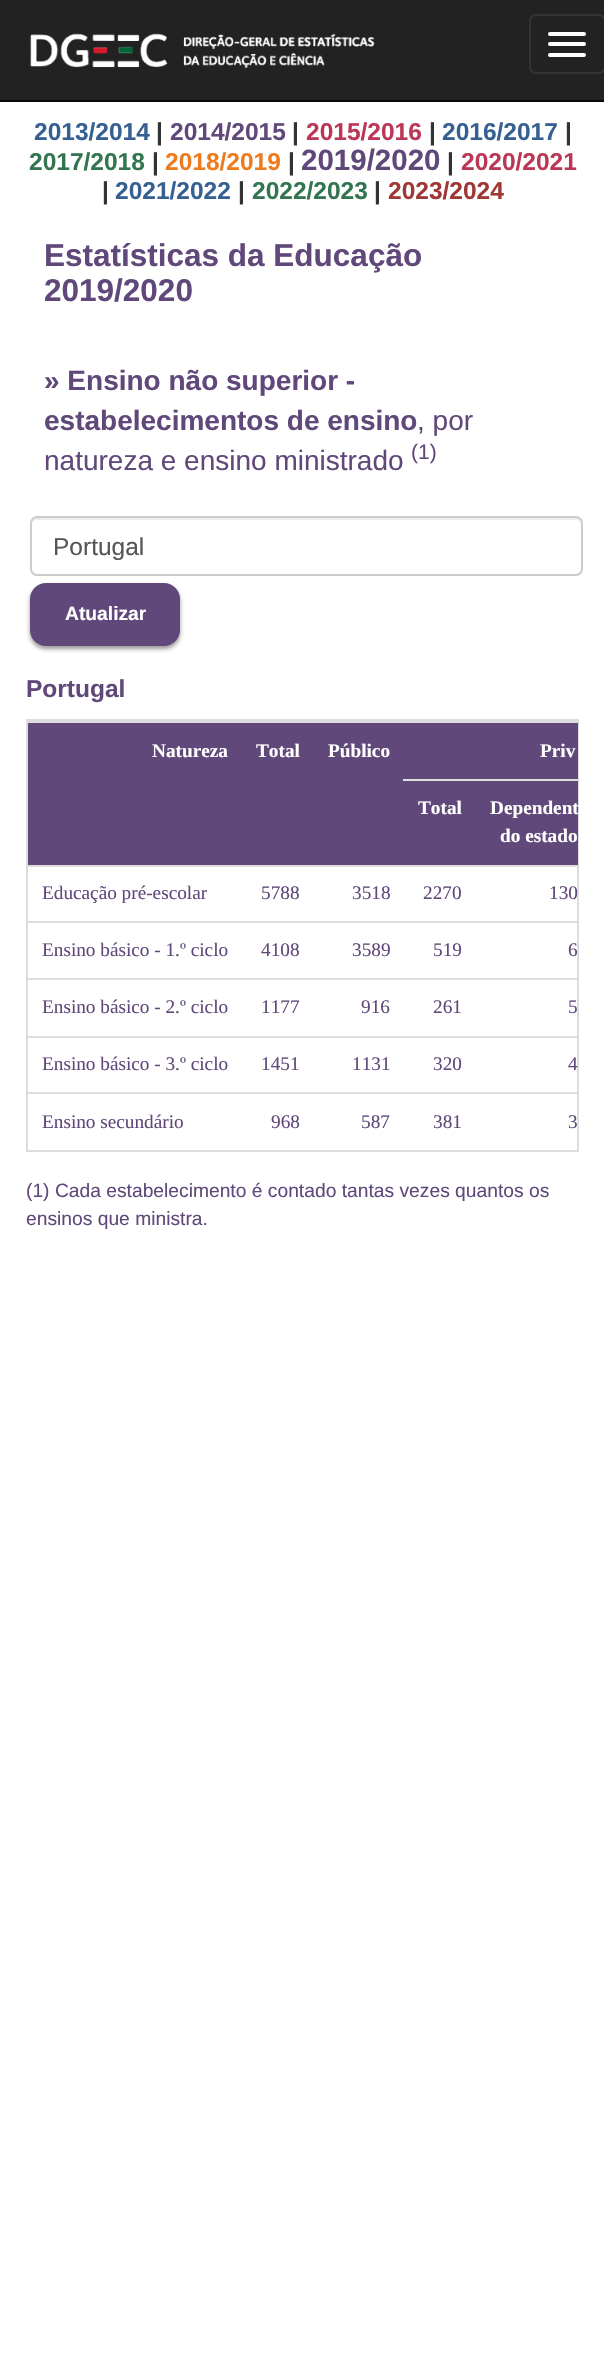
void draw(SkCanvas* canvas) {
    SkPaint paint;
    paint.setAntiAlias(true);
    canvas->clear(0xFFFFFFFF);
    paint.setColor(0xFF222222);
    canvas->drawRect(SkRect::MakeXYWH(0, 0, 604, 100), paint);
    paint.setColor(0xFF080808);
    canvas->drawRect(SkRect::MakeXYWH(0, 100, 604, 2), paint);
    canvas->drawImageRect(SkImages::DeferredFromEncodedData(SkData::MakeFromFileName("img1.png")), SkRect::MakeXYWH(30, 33, 345, 36), SkSamplingOptions());
    paint.setStyle(SkPaint::kStroke_Style);
    paint.setStrokeWidth(2);
    paint.setColor(0xFF333333);
    canvas->drawRoundRect(SkRect::MakeXYWH(530, 15, 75, 58), 6, 6, paint);
    paint.setStyle(SkPaint::kFill_Style);
    paint.setColor(0xFFFFFFFF);
    canvas->drawRoundRect(SkRect::MakeXYWH(548, 32, 38, 4), 2, 2, paint);
    canvas->drawRoundRect(SkRect::MakeXYWH(548, 42, 38, 4), 2, 2, paint);
    canvas->drawRoundRect(SkRect::MakeXYWH(548, 53, 38, 4), 2, 2, paint);
    SkFont font1(fontMgr->matchFamilyStyle("Liberation Sans", SkFontStyle::Bold()), 24.5f);
    font1.setSubpixel(true);
    paint.setColor(0xFF366092);
    canvas->drawString("2013/2014", 34, 140, font1, paint);
    paint.setColor(0xFF333333);
    canvas->drawString("|", 156, 140, font1, paint);
    paint.setColor(0xFF60497A);
    canvas->drawString("2014/2015", 170, 140, font1, paint);
    paint.setColor(0xFF333333);
    canvas->drawString("|", 292, 140, font1, paint);
    paint.setColor(0xFFBC3656);
    canvas->drawString("2015/2016", 306, 140, font1, paint);
    paint.setColor(0xFF333333);
    canvas->drawString("|", 429, 140, font1, paint);
    paint.setColor(0xFF366092);
    canvas->drawString("2016/2017", 442, 140, font1, paint);
    paint.setColor(0xFF333333);
    canvas->drawString("|", 565, 140, font1, paint);
    paint.setColor(0xFF337551);
    canvas->drawString("2017/2018", 29, 170, font1, paint);
    paint.setColor(0xFF333333);
    canvas->drawString("|", 152, 170, font1, paint);
    paint.setColor(0xFFED7C1F);
    canvas->drawString("2018/2019", 165, 170, font1, paint);
    paint.setColor(0xFF333333);
    canvas->drawString("|", 288, 170, font1, paint);
    SkFont font2(fontMgr->matchFamilyStyle("Liberation Sans", SkFontStyle::Bold()), 29.5f);
    font2.setSubpixel(true);
    paint.setColor(0xFF60497A);
    canvas->drawString("2019/2020", 301, 170, font2, paint);
    paint.setColor(0xFF333333);
    canvas->drawString("|", 447, 170, font1, paint);
    paint.setColor(0xFFBC3656);
    canvas->drawString("2020/2021", 461, 170, font1, paint);
    paint.setColor(0xFF333333);
    canvas->drawString("|", 102, 199, font1, paint);
    paint.setColor(0xFF366092);
    canvas->drawString("2021/2022", 115, 199, font1, paint);
    paint.setColor(0xFF333333);
    canvas->drawString("|", 238, 199, font1, paint);
    paint.setColor(0xFF337551);
    canvas->drawString("2022/2023", 252, 199, font1, paint);
    paint.setColor(0xFF333333);
    canvas->drawString("|", 374, 199, font1, paint);
    paint.setColor(0xFF9F3735);
    canvas->drawString("2023/2024", 388, 199, font1, paint);
    SkFont font3(fontMgr->matchFamilyStyle("Liberation Sans", SkFontStyle::Bold()), 31.5f);
    font3.setSubpixel(true);
    paint.setColor(0xFF60497A);
    canvas->drawString("Estatísticas da Educação", 44, 266, font3, paint);
    canvas->drawString("2019/2020", 44, 301, font3, paint);
    SkFont font4(fontMgr->matchFamilyStyle("Liberation Sans", SkFontStyle::Bold()), 28);
    font4.setSubpixel(true);
    canvas->drawString("» Ensino não superior -", 44, 390, font4, paint);
    canvas->drawString("estabelecimentos de ensino", 44, 430, font4, paint);
    SkFont font5(fontMgr->matchFamilyStyle("Liberation Sans", SkFontStyle::Normal()), 28);
    font5.setSubpixel(true);
    canvas->drawString(", por", 417, 430, font5, paint);
    canvas->drawString("natureza e ensino ministrado", 44, 470, font5, paint);
    SkFont font6(fontMgr->matchFamilyStyle("Liberation Sans", SkFontStyle::Normal()), 21);
    font6.setSubpixel(true);
    canvas->drawString("(1)", 411, 459, font6, paint);
    paint.setColor(0xFFECECEC);
    canvas->drawPath(SkPathBuilder().moveTo(37, 520).lineTo(576, 520).cubicTo(579, 520, 581, 522, 581, 525).lineTo(581, 523).cubicTo(581, 520, 579, 518, 576, 518).lineTo(37, 518).cubicTo(34, 518, 32, 520, 32, 523).lineTo(32, 525).cubicTo(32, 522, 34, 520, 37, 520).close().detach(), paint);
    paint.setStyle(SkPaint::kStroke_Style);
    paint.setColor(0xFFCCCCCC);
    canvas->drawRoundRect(SkRect::MakeXYWH(31, 517, 551, 58), 6, 6, paint);
    SkFont font7(fontMgr->matchFamilyStyle("Liberation Sans", SkFontStyle::Normal()), 24.5f);
    font7.setSubpixel(true);
    paint.setStyle(SkPaint::kFill_Style);
    paint.setColor(0xFF555555);
    canvas->drawString("Portugal", 53, 555, font7, paint);
    paint.setColor(0x66000000);
    paint.setMaskFilter(SkMaskFilter::MakeBlur(kNormal_SkBlurStyle, 2));
    canvas->drawRoundRect(SkRect::MakeXYWH(30, 586, 150, 63), 16, 16, paint);
    paint.setMaskFilter(nullptr);
    paint.setColor(0xFF60497A);
    canvas->drawRoundRect(SkRect::MakeXYWH(30, 583, 150, 63), 16, 16, paint);
    SkFont font8(fontMgr->matchFamilyStyle("Liberation Sans", SkFontStyle::Bold()), 19.25f);
    font8.setSubpixel(true);
    paint.setColor(0xFFFFFFFF);
    canvas->drawString("Atualizar", 65, 620, font8, paint);
    paint.setColor(0xFF60497A);
    canvas->drawString("Portugal", 26, 697, font1, paint);
    paint.setStyle(SkPaint::kStroke_Style);
    paint.setColor(0xFFDDDDDD);
    canvas->drawRect(SkRect::MakeXYWH(27, 720, 551, 431), paint);
    paint.setStyle(SkPaint::kFill_Style);
    paint.setColor(0xFF60497A);
    canvas->drawRect(SkRect::MakeXYWH(28, 723, 376, 142), paint);
    SkFont font9(fontMgr->matchFamilyStyle("Liberation Serif", SkFontStyle::Bold()), 19.25f);
    font9.setSubpixel(true);
    paint.setColor(0xFFFFFFFF);
    canvas->drawString("Natureza", 152, 757, font9, paint);
    canvas->drawString("Total", 256, 757, font9, paint);
    canvas->drawString("Público", 328, 757, font9, paint);
    paint.setColor(0xFF60497A);
    canvas->drawRect(SkRect::MakeXYWH(404, 723, 174, 56), paint);
    paint.setColor(0xFFDDDDDD);
    canvas->drawRect(SkRect::MakeXYWH(28, 721, 550, 2), paint);
    paint.setColor(0xFFFFFFFF);
    canvas->drawString("Priv", 540, 757, font9, paint);
    paint.setColor(0xFF60497A);
    canvas->drawRect(SkRect::MakeXYWH(404, 781, 174, 84), paint);
    paint.setColor(0xFFFFFFFF);
    canvas->drawString("Total", 418, 814, font9, paint);
    paint.setColor(0xFFDDDDDD);
    canvas->drawRect(SkRect::MakeXYWH(403, 779, 175, 2), paint);
    paint.setColor(0xFFFFFFFF);
    canvas->drawString("Dependent", 490, 814, font9, paint);
    canvas->drawString("do estado", 500, 842, font9, paint);
    SkFont font10(fontMgr->matchFamilyStyle("Liberation Serif", SkFontStyle::Normal()), 19.25f);
    font10.setSubpixel(true);
    paint.setColor(0xFF60497A);
    canvas->drawString("Educação pré-escolar", 42, 899, font10, paint);
    canvas->drawString("5788", 261, 899, font10, paint);
    canvas->drawString("3518", 352, 899, font10, paint);
    canvas->drawString("2270", 423, 899, font10, paint);
    paint.setColor(0xFFDDDDDD);
    canvas->drawRect(SkRect::MakeXYWH(28, 865, 550, 2), paint);
    paint.setColor(0xFF60497A);
    canvas->drawString("130", 549, 899, font10, paint);
    canvas->drawString("Ensino básico - 1.º ciclo", 42, 956, font10, paint);
    canvas->drawString("4108", 261, 956, font10, paint);
    canvas->drawString("3589", 352, 956, font10, paint);
    canvas->drawString("519", 433, 956, font10, paint);
    paint.setColor(0xFFDDDDDD);
    canvas->drawRect(SkRect::MakeXYWH(28, 921, 550, 2), paint);
    paint.setColor(0xFF60497A);
    canvas->drawString("6", 568, 956, font10, paint);
    canvas->drawString("Ensino básico - 2.º ciclo", 42, 1013, font10, paint);
    canvas->drawString("1177", 261, 1013, font10, paint);
    canvas->drawString("916", 361, 1013, font10, paint);
    canvas->drawString("261", 433, 1013, font10, paint);
    paint.setColor(0xFFDDDDDD);
    canvas->drawRect(SkRect::MakeXYWH(28, 978, 550, 2), paint);
    paint.setColor(0xFF60497A);
    canvas->drawString("5", 568, 1013, font10, paint);
    canvas->drawString("Ensino básico - 3.º ciclo", 42, 1070, font10, paint);
    canvas->drawString("1451", 261, 1070, font10, paint);
    canvas->drawString("1131", 352, 1070, font10, paint);
    canvas->drawString("320", 433, 1070, font10, paint);
    paint.setColor(0xFFDDDDDD);
    canvas->drawRect(SkRect::MakeXYWH(28, 1036, 550, 2), paint);
    paint.setColor(0xFF60497A);
    canvas->drawString("4", 568, 1070, font10, paint);
    canvas->drawString("Ensino secundário", 42, 1128, font10, paint);
    canvas->drawString("968", 271, 1128, font10, paint);
    canvas->drawString("587", 361, 1128, font10, paint);
    canvas->drawString("381", 433, 1128, font10, paint);
    paint.setColor(0xFFDDDDDD);
    canvas->drawRect(SkRect::MakeXYWH(28, 1092, 550, 2), paint);
    paint.setColor(0xFF60497A);
    canvas->drawString("3", 568, 1128, font10, paint);
    SkFont font11(fontMgr->matchFamilyStyle("Liberation Sans", SkFontStyle::Normal()), 19.25f);
    font11.setSubpixel(true);
    canvas->drawString("(1) Cada estabelecimento é contado tantas vezes quantos os", 26, 1197, font11, paint);
    canvas->drawString("ensinos que ministra.", 26, 1225, font11, paint);
}
